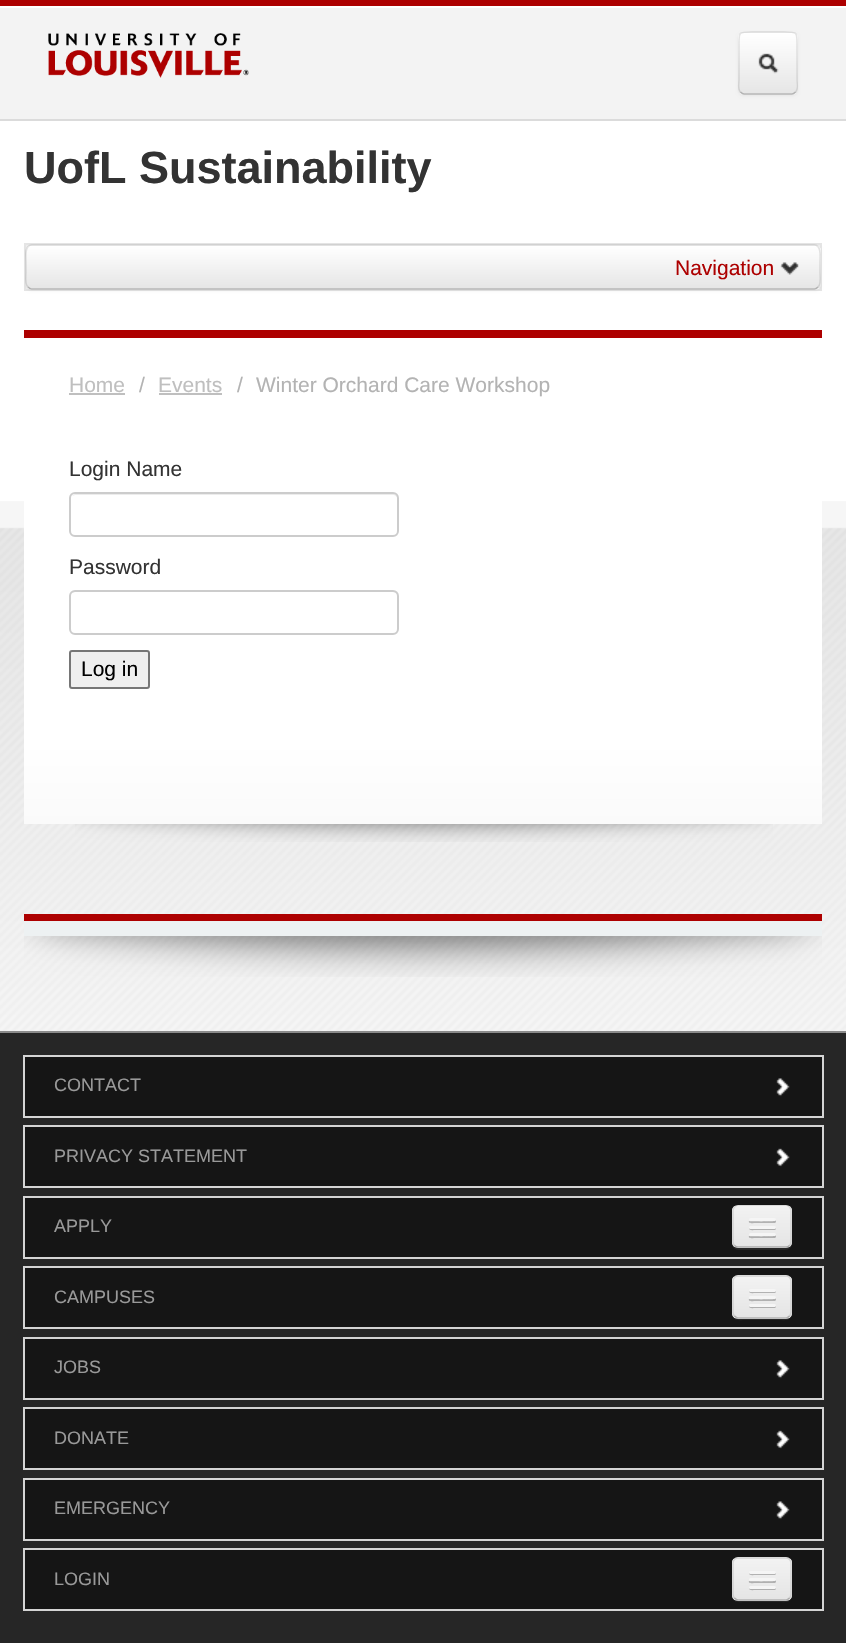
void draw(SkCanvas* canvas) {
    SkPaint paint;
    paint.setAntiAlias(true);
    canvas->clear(0xFFFFFFFF);
    canvas->drawImageRect(SkImages::DeferredFromEncodedData(SkData::MakeFromFileName("img1.png")), SkRect::MakeXYWH(0, 501, 846, 530), SkSamplingOptions());
    paint.setColor(0xFFAD0000);
    canvas->drawRect(SkRect::MakeXYWH(0, 0, 846, 6), paint);
    paint.setColor(0xFFF3F3F3);
    canvas->drawRect(SkRect::MakeXYWH(0, 8, 846, 111), paint);
    paint.setColor(0xFFDBDBDB);
    canvas->drawRect(SkRect::MakeXYWH(0, 119, 846, 2), paint);
    canvas->drawImageRect(SkImages::DeferredFromEncodedData(SkData::MakeFromFileName("img2.png")), SkRect::MakeXYWH(48, 33, 201, 45), SkSamplingOptions());
    paint.setColor(0x0D000000);
    paint.setMaskFilter(SkMaskFilter::MakeBlur(kNormal_SkBlurStyle, 1.5f));
    canvas->drawRoundRect(SkRect::MakeXYWH(738, 33, 60, 63), 6, 6, paint);
    paint.setMaskFilter(nullptr);
    paint.setColor(0xFFF5F5F5);
    canvas->drawRoundRect(SkRect::MakeXYWH(738, 32, 60, 63), 6, 6, paint);
    canvas->save();
    canvas->clipPath(SkPathBuilder().moveTo(744, 32).lineTo(792, 32).cubicTo(795.5f, 32, 798, 34.5f, 798, 38).lineTo(798, 89).cubicTo(798, 92.5f, 795.5f, 95, 792, 95).lineTo(744, 95).cubicTo(740.5f, 95, 738, 92.5f, 738, 89).lineTo(738, 38).cubicTo(738, 34.5f, 740.5f, 32, 744, 32).close().detach(), true);
    {
        const SkColor colors[] = {0xFFFFFFFF, 0xFFE6E6E6};
        const float stops[] = {0, 1};
        const SkPoint ends[] = {{768, 33}, {768, 93}};
        paint.setShader(SkGradientShader::MakeLinear(ends, colors, stops, 2, SkTileMode::kClamp));
        paint.setAlpha(255);
    }
    canvas->drawRect(SkRect::MakeXYWH(738, 33, 60, 60), paint);
    canvas->restore();
    paint.setShader(nullptr);
    paint.setColor(0x33FFFFFF);
    canvas->drawPath(SkPathBuilder().moveTo(744, 34).lineTo(793, 34).cubicTo(798, 36, 796, 45, 796, 48).lineTo(796, 91).cubicTo(797, 90, 797, 89, 797, 88).lineTo(797, 38).cubicTo(797, 35, 795, 33, 792, 33).lineTo(745, 33).cubicTo(742, 33, 740, 35, 740, 38).lineTo(740, 39).cubicTo(740, 37, 742, 34, 744, 34).close().detach(), paint);
    paint.setStyle(SkPaint::kStroke_Style);
    paint.setStrokeWidth(1.5f);
    paint.setColor(0xFFB3B3B3);
    canvas->drawPath(SkPathBuilder().moveTo(795.5f, 92).cubicTo(794.5f, 93, 793.5f, 94, 792, 94).lineTo(744, 94).cubicTo(742.5f, 94, 741.5f, 93, 740.5f, 92).detach(), paint);
    paint.setColor(0x1A000000);
    canvas->drawPath(SkPathBuilder().moveTo(740.5f, 92).cubicTo(737.5f, 89.5f, 739, 82.5f, 739, 80).lineTo(739, 46).cubicTo(739, 32, 738, 32, 752, 32).lineTo(784, 32).cubicTo(798, 32, 797, 32, 797, 46).lineTo(797, 80).cubicTo(797, 82.5f, 798.5f, 89.5f, 795.5f, 92).detach(), paint);
    canvas->drawImageRect(SkImages::DeferredFromEncodedData(SkData::MakeFromFileName("img3.png")), SkRect::MakeXYWH(758, 53, 21, 21), SkSamplingOptions());
    SkFont font1(fontMgr->matchFamilyStyle("Liberation Sans", SkFontStyle::Bold()), 45);
    font1.setSubpixel(true);
    paint.setStyle(SkPaint::kFill_Style);
    paint.setColor(0xFF333333);
    canvas->drawString("UofL Sustainability", 24, 183, font1, paint);
    paint.setColor(0xFFEEEEEE);
    canvas->drawRect(SkRect::MakeXYWH(25, 244, 796, 46), paint);
    paint.setStyle(SkPaint::kStroke_Style);
    paint.setStrokeWidth(2);
    paint.setColor(0xFFE5E5E5);
    canvas->drawRect(SkRect::MakeXYWH(25, 244, 796, 46), paint);
    paint.setStyle(SkPaint::kFill_Style);
    paint.setColor(0x0D000000);
    paint.setMaskFilter(SkMaskFilter::MakeBlur(kNormal_SkBlurStyle, 1.5f));
    canvas->drawRoundRect(SkRect::MakeXYWH(26, 246, 795, 45), 6, 6, paint);
    paint.setMaskFilter(nullptr);
    paint.setColor(0xFFF5F5F5);
    canvas->drawRoundRect(SkRect::MakeXYWH(26, 245, 795, 45), 6, 6, paint);
    canvas->save();
    canvas->clipPath(SkPathBuilder().moveTo(32, 245).lineTo(815, 245).cubicTo(818.5f, 245, 821, 247.5f, 821, 251).lineTo(821, 284).cubicTo(821, 287.5f, 818.5f, 290, 815, 290).lineTo(32, 290).cubicTo(28.5f, 290, 26, 287.5f, 26, 284).lineTo(26, 251).cubicTo(26, 247.5f, 28.5f, 245, 32, 245).close().detach(), true);
    {
        const SkColor colors[] = {0xFFFFFFFF, 0xFFE6E6E6};
        const float stops[] = {0, 1};
        const SkPoint ends[] = {{423, 246}, {423, 288}};
        paint.setShader(SkGradientShader::MakeLinear(ends, colors, stops, 2, SkTileMode::kClamp));
        paint.setAlpha(255);
    }
    canvas->drawRect(SkRect::MakeXYWH(26, 246, 795, 42), paint);
    canvas->restore();
    paint.setStyle(SkPaint::kStroke_Style);
    paint.setStrokeWidth(1.5f);
    paint.setShader(nullptr);
    paint.setColor(0xFFB3B3B3);
    canvas->drawPath(SkPathBuilder().moveTo(818, 287).cubicTo(817, 288, 816, 289, 814.5f, 289).lineTo(31.5f, 289).cubicTo(30, 289, 29, 288, 28, 287).detach(), paint);
    paint.setColor(0x1A000000);
    canvas->drawPath(SkPathBuilder().moveTo(28, 287).cubicTo(24.5f, 284, 26, 276, 26, 272.5f).lineTo(26, 261.5f).cubicTo(26, 257.5f, 24, 245.5f, 31.5f, 245).lineTo(814.5f, 245).cubicTo(822, 245.5f, 820, 257.5f, 820, 261.5f).lineTo(820, 272.5f).cubicTo(820, 276, 821.5f, 284, 818, 287).detach(), paint);
    SkFont font2(fontMgr->matchFamilyStyle("Liberation Sans", SkFontStyle::Normal()), 21);
    font2.setSubpixel(true);
    paint.setStyle(SkPaint::kFill_Style);
    paint.setColor(0xFFAD0000);
    canvas->drawString("Navigation", 675, 275, font2, paint);
    canvas->drawImageRect(SkImages::DeferredFromEncodedData(SkData::MakeFromFileName("img4.png")), SkRect::MakeXYWH(780, 262, 19, 13), SkSamplingOptions());
    canvas->drawRect(SkRect::MakeXYWH(24, 330, 798, 8), paint);
    {
        const SkColor colors[] = {0xFFFAFAFA, 0xFFFFFFFF};
        const float stops[] = {0, 0.17f};
        const SkPoint ends[] = {{423, 824}, {423, 338}};
        paint.setShader(SkGradientShader::MakeLinear(ends, colors, stops, 2, SkTileMode::kClamp));
        paint.setAlpha(255);
    }
    canvas->drawRect(SkRect::MakeXYWH(24, 501, 798, 323), paint);
    paint.setShader(nullptr);
    paint.setColor(0xFFBFBFBF);
    canvas->drawString("Home", 69, 392, font2, paint);
    canvas->drawRect(SkRect::MakeXYWH(69, 393, 56, 2), paint);
    paint.setColor(0xFFB3B3B3);
    canvas->drawString("/", 139, 392, font2, paint);
    paint.setColor(0xFFBFBFBF);
    canvas->drawString("Events", 158, 392, font2, paint);
    canvas->drawRect(SkRect::MakeXYWH(159, 393, 63, 2), paint);
    paint.setColor(0xFFB3B3B3);
    canvas->drawString("/", 237, 392, font2, paint);
    canvas->drawString("Winter Orchard Care Workshop", 256, 392, font2, paint);
    paint.setColor(0xFF333333);
    canvas->drawString("Login Name", 69, 476, font2, paint);
    paint.setColor(0xFFECECEC);
    canvas->drawPath(SkPathBuilder().moveTo(75, 495).lineTo(393, 495).cubicTo(395, 495, 398, 497, 398, 500).lineTo(398, 499).cubicTo(398, 496, 396, 494, 393, 494).lineTo(76, 494).cubicTo(74, 494, 73, 495, 72, 496).close().detach(), paint);
    paint.setStyle(SkPaint::kStroke_Style);
    paint.setStrokeWidth(2);
    paint.setColor(0xFFCCCCCC);
    canvas->drawRoundRect(SkRect::MakeXYWH(70, 493, 328, 43), 5, 5, paint);
    paint.setStyle(SkPaint::kFill_Style);
    paint.setColor(0xFF333333);
    canvas->drawString("Password", 69, 574, font2, paint);
    paint.setColor(0xFFECECEC);
    canvas->drawPath(SkPathBuilder().moveTo(75, 592).lineTo(393, 592).cubicTo(395, 592, 398, 595, 398, 597).lineTo(398, 596).cubicTo(398, 593, 396, 591, 393, 591).lineTo(76, 591).cubicTo(74, 591, 72, 592, 71, 594).cubicTo(72, 593, 74, 592, 75, 592).close().detach(), paint);
    paint.setStyle(SkPaint::kStroke_Style);
    paint.setColor(0xFFCCCCCC);
    canvas->drawRoundRect(SkRect::MakeXYWH(70, 591, 328, 43), 5, 5, paint);
    paint.setStyle(SkPaint::kFill_Style);
    paint.setColor(0xFFEFEFEF);
    canvas->drawRoundRect(SkRect::MakeXYWH(70, 651, 79, 37), 2, 2, paint);
    paint.setStyle(SkPaint::kStroke_Style);
    paint.setColor(0xFF767676);
    canvas->drawRoundRect(SkRect::MakeXYWH(70, 651, 79, 37), 2, 2, paint);
    paint.setStyle(SkPaint::kFill_Style);
    paint.setColor(0xFF000000);
    canvas->drawString("Log in", 81, 676, font2, paint);
    canvas->drawImageRect(SkImages::DeferredFromEncodedData(SkData::MakeFromFileName("img5.png")), SkRect::MakeXYWH(75, 824, 698, 18), SkSamplingOptions());
    paint.setColor(0xFFAD0000);
    canvas->drawRect(SkRect::MakeXYWH(24, 914, 798, 7), paint);
    paint.setColor(0xFFEDF1F2);
    canvas->drawRect(SkRect::MakeXYWH(24, 921, 798, 15), paint);
    canvas->drawImageRect(SkImages::DeferredFromEncodedData(SkData::MakeFromFileName("img6.png")), SkRect::MakeXYWH(24, 936, 798, 41), SkSamplingOptions());
    paint.setColor(0xFF262626);
    canvas->drawRect(SkRect::MakeXYWH(0, 1033, 846, 610), paint);
    paint.setColor(0xFF8B8B8B);
    canvas->drawRect(SkRect::MakeXYWH(0, 1031, 846, 2), paint);
    paint.setColor(0xFF151515);
    canvas->drawRect(SkRect::MakeXYWH(24, 1056, 799, 61), paint);
    paint.setStyle(SkPaint::kStroke_Style);
    paint.setColor(0xFFD4D4D4);
    canvas->drawRect(SkRect::MakeXYWH(24, 1056, 799, 61), paint);
    SkFont font3(fontMgr->matchFamilyStyle("Liberation Sans", SkFontStyle::Normal()), 18);
    font3.setSubpixel(true);
    paint.setStyle(SkPaint::kFill_Style);
    paint.setColor(0xFF999999);
    canvas->drawString("CONTACT", 54, 1091, font3, paint);
    canvas->drawImageRect(SkImages::DeferredFromEncodedData(SkData::MakeFromFileName("img7.png")), SkRect::MakeXYWH(776, 1078, 14, 19), SkSamplingOptions());
    paint.setColor(0xFF151515);
    canvas->drawRect(SkRect::MakeXYWH(24, 1126, 799, 61), paint);
    paint.setStyle(SkPaint::kStroke_Style);
    paint.setColor(0xFFD4D4D4);
    canvas->drawRect(SkRect::MakeXYWH(24, 1126, 799, 61), paint);
    paint.setStyle(SkPaint::kFill_Style);
    paint.setColor(0xFF999999);
    canvas->drawString("PRIVACY STATEMENT", 54, 1162, font3, paint);
    canvas->drawImageRect(SkImages::DeferredFromEncodedData(SkData::MakeFromFileName("img8.png")), SkRect::MakeXYWH(776, 1148, 14, 19), SkSamplingOptions());
    paint.setColor(0xFF151515);
    canvas->drawRect(SkRect::MakeXYWH(24, 1197, 799, 61), paint);
    paint.setStyle(SkPaint::kStroke_Style);
    paint.setColor(0xFFD4D4D4);
    canvas->drawRect(SkRect::MakeXYWH(24, 1197, 799, 61), paint);
    paint.setStyle(SkPaint::kFill_Style);
    paint.setColor(0xFF999999);
    canvas->drawString("APPLY", 54, 1232, font3, paint);
    paint.setColor(0xFF272727);
    canvas->drawPath(SkPathBuilder().moveTo(732, 1242).cubicTo(732, 1251, 738, 1250, 746, 1250).lineTo(778, 1250).cubicTo(786, 1250, 792, 1251, 792, 1242).cubicTo(792, 1245, 789, 1248, 786, 1248).lineTo(738, 1248).cubicTo(735, 1248, 732, 1245, 732, 1242).close().detach(), paint);
    paint.setColor(0xFFEDEDED);
    canvas->drawRoundRect(SkRect::MakeXYWH(732, 1205, 60, 43), 6, 6, paint);
    canvas->save();
    canvas->clipPath(SkPathBuilder().moveTo(738, 1205).lineTo(786, 1205).cubicTo(789.5f, 1205, 792, 1207.5f, 792, 1211).lineTo(792, 1242).cubicTo(792, 1245.5f, 789.5f, 1248, 786, 1248).lineTo(738, 1248).cubicTo(734.5f, 1248, 732, 1245.5f, 732, 1242).lineTo(732, 1211).cubicTo(732, 1207.5f, 734.5f, 1205, 738, 1205).close().detach(), true);
    {
        const SkColor colors[] = {0xFFF2F2F2, 0xFFE5E5E5};
        const float stops[] = {0, 1};
        const SkPoint ends[] = {{762, 1206}, {762, 1247}};
        paint.setShader(SkGradientShader::MakeLinear(ends, colors, stops, 2, SkTileMode::kClamp));
        paint.setAlpha(255);
    }
    canvas->drawRect(SkRect::MakeXYWH(732, 1206, 60, 41), paint);
    canvas->restore();
    paint.setStyle(SkPaint::kStroke_Style);
    paint.setStrokeWidth(1.5f);
    paint.setShader(nullptr);
    paint.setColor(0x40000000);
    canvas->drawPath(SkPathBuilder().moveTo(789.5f, 1245.5f).cubicTo(788.5f, 1246.5f, 787.5f, 1247, 786, 1247).lineTo(738, 1247).cubicTo(736.5f, 1247, 735.5f, 1246.5f, 734.5f, 1245.5f).detach(), paint);
    paint.setColor(0x1A000000);
    canvas->drawPath(SkPathBuilder().moveTo(734.5f, 1245.5f).cubicTo(733.5f, 1244.5f, 733, 1243.5f, 733, 1242).lineTo(733, 1210.5f).cubicTo(733, 1209, 733.5f, 1208, 734.5f, 1207).cubicTo(735.5f, 1206, 736.5f, 1205, 738, 1205).lineTo(786, 1205).cubicTo(787.5f, 1205, 788.5f, 1206, 789.5f, 1207).cubicTo(790.5f, 1208, 791, 1209, 791, 1210.5f).lineTo(791, 1242).cubicTo(791, 1243.5f, 790.5f, 1244.5f, 789.5f, 1245.5f).detach(), paint);
    paint.setStyle(SkPaint::kFill_Style);
    paint.setColor(0xFFB2B2B2);
    canvas->drawPath(SkPathBuilder().moveTo(749, 1221).cubicTo(747.5f, 1224, 754.5f, 1223, 754.5f, 1223).lineTo(775, 1223).cubicTo(776, 1222.5f, 776.5f, 1221, 775.5f, 1220).lineTo(774, 1221).cubicTo(772, 1221.5f, 750, 1221.5f, 749, 1221).close().detach(), paint);
    paint.setColor(0xFFF5F5F5);
    canvas->drawRoundRect(SkRect::MakeXYWH(749, 1218, 27, 3), 1.5f, 1.5f, paint);
    paint.setColor(0xFFB0B0B0);
    canvas->drawPath(SkPathBuilder().moveTo(749, 1228).cubicTo(748.5f, 1231, 754, 1230, 754.5f, 1230).lineTo(774.5f, 1230).cubicTo(776, 1230, 776.5f, 1228, 775.5f, 1227.5f).lineTo(774.5f, 1228.5f).cubicTo(773, 1229, 749.5f, 1228.5f, 749, 1228).close().detach(), paint);
    paint.setColor(0xFFF5F5F5);
    canvas->drawRoundRect(SkRect::MakeXYWH(749, 1226, 27, 3), 1.5f, 1.5f, paint);
    paint.setColor(0xFFAEAEAE);
    canvas->drawPath(SkPathBuilder().moveTo(749, 1236).cubicTo(747.5f, 1239, 754.5f, 1238, 754.5f, 1238).lineTo(775, 1238).cubicTo(776, 1237.5f, 776.5f, 1236, 775.5f, 1235).lineTo(774, 1236).cubicTo(772, 1236.5f, 750, 1236.5f, 749, 1236).close().detach(), paint);
    paint.setColor(0xFFF5F5F5);
    canvas->drawRoundRect(SkRect::MakeXYWH(749, 1233, 27, 3), 1.5f, 1.5f, paint);
    paint.setColor(0xFF151515);
    canvas->drawRect(SkRect::MakeXYWH(24, 1267, 799, 61), paint);
    paint.setStyle(SkPaint::kStroke_Style);
    paint.setStrokeWidth(2);
    paint.setColor(0xFFD4D4D4);
    canvas->drawRect(SkRect::MakeXYWH(24, 1267, 799, 61), paint);
    paint.setStyle(SkPaint::kFill_Style);
    paint.setColor(0xFF999999);
    canvas->drawString("CAMPUSES", 54, 1303, font3, paint);
    paint.setColor(0xFF272727);
    canvas->drawPath(SkPathBuilder().moveTo(732, 1312).cubicTo(732, 1322, 739, 1320, 746, 1320).lineTo(778, 1320).cubicTo(785, 1320, 792, 1322, 792, 1312).cubicTo(792, 1316, 789, 1318, 786, 1318).lineTo(738, 1318).cubicTo(735, 1318, 732, 1316, 732, 1312).close().detach(), paint);
    paint.setColor(0xFFEDEDED);
    canvas->drawRoundRect(SkRect::MakeXYWH(732, 1275, 60, 44), 6, 6, paint);
    canvas->save();
    canvas->clipPath(SkPathBuilder().moveTo(738, 1275).lineTo(786, 1275).cubicTo(789.5f, 1275, 792, 1277.5f, 792, 1281).lineTo(792, 1313).cubicTo(792, 1316.5f, 789.5f, 1319, 786, 1319).lineTo(738, 1319).cubicTo(734.5f, 1319, 732, 1316.5f, 732, 1313).lineTo(732, 1281).cubicTo(732, 1277.5f, 734.5f, 1275, 738, 1275).close().detach(), true);
    {
        const SkColor colors[] = {0xFFF2F2F2, 0xFFE5E5E5};
        const float stops[] = {0, 1};
        const SkPoint ends[] = {{762, 1277}, {762, 1317}};
        paint.setShader(SkGradientShader::MakeLinear(ends, colors, stops, 2, SkTileMode::kClamp));
        paint.setAlpha(255);
    }
    canvas->drawRect(SkRect::MakeXYWH(732, 1277, 60, 40), paint);
    canvas->restore();
    paint.setStyle(SkPaint::kStroke_Style);
    paint.setStrokeWidth(1.5f);
    paint.setShader(nullptr);
    paint.setColor(0x40000000);
    canvas->drawPath(SkPathBuilder().moveTo(789.5f, 1316).cubicTo(788.5f, 1317, 787.5f, 1318, 786, 1318).lineTo(738, 1318).cubicTo(736.5f, 1318, 735.5f, 1317, 734.5f, 1316).detach(), paint);
    paint.setColor(0x1A000000);
    canvas->drawPath(SkPathBuilder().moveTo(734.5f, 1316).cubicTo(733.5f, 1315, 733, 1314, 733, 1312.5f).lineTo(733, 1281).cubicTo(733, 1279.5f, 733.5f, 1278.5f, 734.5f, 1277.5f).cubicTo(735.5f, 1276.5f, 736.5f, 1276, 738, 1276).lineTo(786, 1276).cubicTo(787.5f, 1276, 788.5f, 1276.5f, 789.5f, 1277.5f).cubicTo(790.5f, 1278.5f, 791, 1279.5f, 791, 1281).lineTo(791, 1312.5f).cubicTo(791, 1314, 790.5f, 1315, 789.5f, 1316).detach(), paint);
    paint.setStyle(SkPaint::kFill_Style);
    paint.setColor(0xFFB2B2B2);
    canvas->drawPath(SkPathBuilder().moveTo(749, 1291).cubicTo(748.5f, 1294, 754, 1293, 754.5f, 1293).lineTo(774.5f, 1293).cubicTo(776, 1293, 776.5f, 1291, 775.5f, 1290.5f).lineTo(774.5f, 1291.5f).cubicTo(773, 1292, 749.5f, 1291.5f, 749, 1291).close().detach(), paint);
    paint.setColor(0xFFF5F5F5);
    canvas->drawRoundRect(SkRect::MakeXYWH(749, 1289, 27, 3), 1.5f, 1.5f, paint);
    paint.setColor(0xFFB0B0B0);
    canvas->drawPath(SkPathBuilder().moveTo(749, 1299).cubicTo(747.5f, 1302, 754.5f, 1301, 754.5f, 1301).lineTo(775, 1301).cubicTo(776, 1300.5f, 776.5f, 1299, 775.5f, 1298).lineTo(774, 1299).cubicTo(772, 1299.5f, 750, 1299.5f, 749, 1299).close().detach(), paint);
    paint.setColor(0xFFF5F5F5);
    canvas->drawRoundRect(SkRect::MakeXYWH(749, 1296, 27, 3), 1.5f, 1.5f, paint);
    paint.setColor(0xFFAEAEAE);
    canvas->drawPath(SkPathBuilder().moveTo(749, 1306).cubicTo(748.5f, 1309, 754, 1308, 754.5f, 1308).lineTo(774.5f, 1308).cubicTo(776, 1308, 776.5f, 1306, 775.5f, 1305.5f).lineTo(774.5f, 1306.5f).cubicTo(773, 1307, 749.5f, 1306.5f, 749, 1306).close().detach(), paint);
    paint.setColor(0xFFF5F5F5);
    canvas->drawRoundRect(SkRect::MakeXYWH(749, 1304, 27, 3), 1.5f, 1.5f, paint);
    paint.setColor(0xFF151515);
    canvas->drawRect(SkRect::MakeXYWH(24, 1338, 799, 61), paint);
    paint.setStyle(SkPaint::kStroke_Style);
    paint.setStrokeWidth(2);
    paint.setColor(0xFFD4D4D4);
    canvas->drawRect(SkRect::MakeXYWH(24, 1338, 799, 61), paint);
    paint.setStyle(SkPaint::kFill_Style);
    paint.setColor(0xFF999999);
    canvas->drawString("JOBS", 54, 1373, font3, paint);
    canvas->drawImageRect(SkImages::DeferredFromEncodedData(SkData::MakeFromFileName("img7.png")), SkRect::MakeXYWH(776, 1360, 14, 19), SkSamplingOptions());
    paint.setColor(0xFF151515);
    canvas->drawRect(SkRect::MakeXYWH(24, 1408, 799, 61), paint);
    paint.setStyle(SkPaint::kStroke_Style);
    paint.setColor(0xFFD4D4D4);
    canvas->drawRect(SkRect::MakeXYWH(24, 1408, 799, 61), paint);
    paint.setStyle(SkPaint::kFill_Style);
    paint.setColor(0xFF999999);
    canvas->drawString("DONATE", 54, 1444, font3, paint);
    canvas->drawImageRect(SkImages::DeferredFromEncodedData(SkData::MakeFromFileName("img8.png")), SkRect::MakeXYWH(776, 1430, 14, 19), SkSamplingOptions());
    paint.setColor(0xFF151515);
    canvas->drawRect(SkRect::MakeXYWH(24, 1479, 799, 61), paint);
    paint.setStyle(SkPaint::kStroke_Style);
    paint.setColor(0xFFD4D4D4);
    canvas->drawRect(SkRect::MakeXYWH(24, 1479, 799, 61), paint);
    paint.setStyle(SkPaint::kFill_Style);
    paint.setColor(0xFF999999);
    canvas->drawString("EMERGENCY", 54, 1514, font3, paint);
    canvas->drawImageRect(SkImages::DeferredFromEncodedData(SkData::MakeFromFileName("img7.png")), SkRect::MakeXYWH(776, 1501, 14, 19), SkSamplingOptions());
    paint.setColor(0xFF151515);
    canvas->drawRect(SkRect::MakeXYWH(24, 1549, 799, 61), paint);
    paint.setStyle(SkPaint::kStroke_Style);
    paint.setColor(0xFFD4D4D4);
    canvas->drawRect(SkRect::MakeXYWH(24, 1549, 799, 61), paint);
    paint.setStyle(SkPaint::kFill_Style);
    paint.setColor(0xFF999999);
    canvas->drawString("LOGIN", 54, 1585, font3, paint);
    paint.setColor(0xFF272727);
    canvas->drawPath(SkPathBuilder().moveTo(732, 1594).cubicTo(732, 1604, 739, 1602, 746, 1602).lineTo(778, 1602).cubicTo(785, 1602, 792, 1604, 792, 1594).cubicTo(792, 1598, 789, 1600, 786, 1600).lineTo(738, 1600).cubicTo(735, 1600, 732, 1598, 732, 1594).close().detach(), paint);
    paint.setColor(0xFFEDEDED);
    canvas->drawRoundRect(SkRect::MakeXYWH(732, 1557, 60, 44), 6, 6, paint);
    canvas->save();
    canvas->clipPath(SkPathBuilder().moveTo(738, 1557).lineTo(786, 1557).cubicTo(789.5f, 1557, 792, 1559.5f, 792, 1563).lineTo(792, 1595).cubicTo(792, 1598.5f, 789.5f, 1601, 786, 1601).lineTo(738, 1601).cubicTo(734.5f, 1601, 732, 1598.5f, 732, 1595).lineTo(732, 1563).cubicTo(732, 1559.5f, 734.5f, 1557, 738, 1557).close().detach(), true);
    {
        const SkColor colors[] = {0xFFF2F2F2, 0xFFE5E5E5};
        const float stops[] = {0, 1};
        const SkPoint ends[] = {{762, 1559}, {762, 1599}};
        paint.setShader(SkGradientShader::MakeLinear(ends, colors, stops, 2, SkTileMode::kClamp));
        paint.setAlpha(255);
    }
    canvas->drawRect(SkRect::MakeXYWH(732, 1559, 60, 40), paint);
    canvas->restore();
    paint.setStyle(SkPaint::kStroke_Style);
    paint.setStrokeWidth(1.5f);
    paint.setShader(nullptr);
    paint.setColor(0x40000000);
    canvas->drawPath(SkPathBuilder().moveTo(789.5f, 1598).cubicTo(788.5f, 1599, 787.5f, 1600, 786, 1600).lineTo(738, 1600).cubicTo(736.5f, 1600, 735.5f, 1599, 734.5f, 1598).detach(), paint);
    paint.setColor(0x1A000000);
    canvas->drawPath(SkPathBuilder().moveTo(734.5f, 1598).cubicTo(733.5f, 1597, 733, 1596, 733, 1594.5f).lineTo(733, 1563).cubicTo(733, 1561.5f, 733.5f, 1560.5f, 734.5f, 1559.5f).cubicTo(735.5f, 1558.5f, 736.5f, 1558, 738, 1558).lineTo(786, 1558).cubicTo(787.5f, 1558, 788.5f, 1558.5f, 789.5f, 1559.5f).cubicTo(790.5f, 1560.5f, 791, 1561.5f, 791, 1563).lineTo(791, 1594.5f).cubicTo(791, 1596, 790.5f, 1597, 789.5f, 1598).detach(), paint);
    paint.setStyle(SkPaint::kFill_Style);
    paint.setColor(0xFFB2B2B2);
    canvas->drawPath(SkPathBuilder().moveTo(749, 1573).cubicTo(748.5f, 1576, 754, 1575, 754.5f, 1575).lineTo(774.5f, 1575).cubicTo(776, 1575, 776.5f, 1573, 775.5f, 1572.5f).lineTo(774.5f, 1573.5f).cubicTo(773, 1574, 749.5f, 1573.5f, 749, 1573).close().detach(), paint);
    paint.setColor(0xFFF5F5F5);
    canvas->drawRoundRect(SkRect::MakeXYWH(749, 1571, 27, 3), 1.5f, 1.5f, paint);
    paint.setColor(0xFFB0B0B0);
    canvas->drawPath(SkPathBuilder().moveTo(749, 1581).cubicTo(747.5f, 1584, 754.5f, 1583, 754.5f, 1583).lineTo(775, 1583).cubicTo(776, 1582.5f, 776.5f, 1581, 775.5f, 1580).lineTo(774, 1581).cubicTo(772, 1581.5f, 750, 1581.5f, 749, 1581).close().detach(), paint);
    paint.setColor(0xFFF5F5F5);
    canvas->drawRoundRect(SkRect::MakeXYWH(749, 1578, 27, 3), 1.5f, 1.5f, paint);
    paint.setColor(0xFFAEAEAE);
    canvas->drawPath(SkPathBuilder().moveTo(749, 1588).cubicTo(748.5f, 1591, 754, 1590, 754.5f, 1590).lineTo(774.5f, 1590).cubicTo(776, 1590, 776.5f, 1588, 775.5f, 1587.5f).lineTo(774.5f, 1588.5f).cubicTo(773, 1589, 749.5f, 1588.5f, 749, 1588).close().detach(), paint);
    paint.setColor(0xFFF5F5F5);
    canvas->drawRoundRect(SkRect::MakeXYWH(749, 1586, 27, 3), 1.5f, 1.5f, paint);
}
